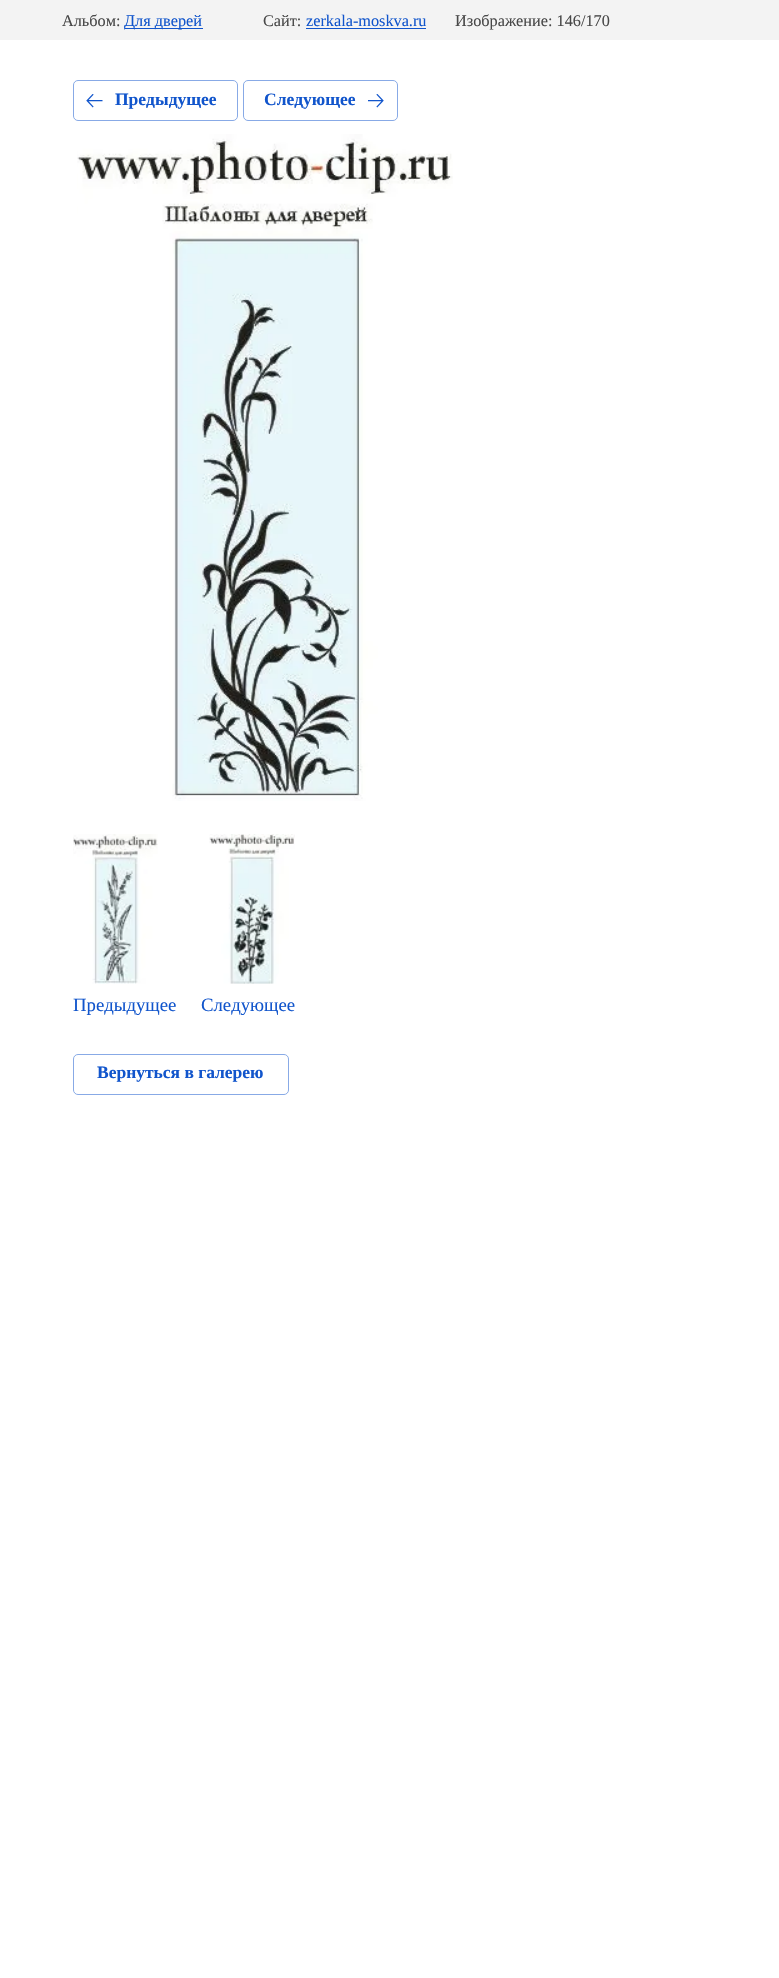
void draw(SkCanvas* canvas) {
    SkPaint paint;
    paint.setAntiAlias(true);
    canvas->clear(0xFFFFFFFF);
    paint.setColor(0xFFF3F3F3);
    canvas->drawRect(SkRect::MakeXYWH(0, 0, 779, 40), paint);
    SkFont font1(fontMgr->matchFamilyStyle("Liberation Serif", SkFontStyle::Normal()), 16.25f);
    font1.setSubpixel(true);
    paint.setColor(0xFF484848);
    canvas->drawString("Альбом:", 62, 26, font1, paint);
    paint.setColor(0xFF1155CC);
    canvas->drawRect(SkRect::MakeXYWH(125, 28, 78, 1), paint);
    canvas->drawString("Для дверей", 124, 26, font1, paint);
    paint.setColor(0xFF484848);
    canvas->drawString("Сайт:", 263, 26, font1, paint);
    paint.setColor(0xFF1155CC);
    canvas->drawString("zerkala-moskva.ru", 306, 26, font1, paint);
    canvas->drawRect(SkRect::MakeXYWH(306, 28, 120, 1), paint);
    paint.setColor(0xFF484848);
    canvas->drawString("Изображение: 146/170", 455, 26, font1, paint);
    paint.setStyle(SkPaint::kStroke_Style);
    paint.setStrokeWidth(1);
    paint.setColor(0xFF88AAE6);
    canvas->drawRoundRect(SkRect::MakeXYWH(73.5f, 80.5f, 164, 40), 4.5f, 4.5f, paint);
    canvas->drawImageRect(SkImages::DeferredFromEncodedData(SkData::MakeFromFileName("img1.png")), SkRect::MakeXYWH(86, 94, 17, 14), SkSamplingOptions());
    SkFont font2(fontMgr->matchFamilyStyle("Liberation Serif", SkFontStyle::Bold()), 17.5f);
    font2.setSubpixel(true);
    paint.setStyle(SkPaint::kFill_Style);
    paint.setColor(0xFF1155CC);
    canvas->drawString("Предыдущее", 115, 105, font2, paint);
    paint.setStyle(SkPaint::kStroke_Style);
    paint.setColor(0xFF88AAE6);
    canvas->drawRoundRect(SkRect::MakeXYWH(243.5f, 80.5f, 154, 40), 4.5f, 4.5f, paint);
    paint.setStyle(SkPaint::kFill_Style);
    paint.setColor(0xFF1155CC);
    canvas->drawString("Следующее", 264, 105, font2, paint);
    canvas->drawImageRect(SkImages::DeferredFromEncodedData(SkData::MakeFromFileName("img2.png")), SkRect::MakeXYWH(368, 94, 16, 14), SkSamplingOptions());
    canvas->drawImageRect(SkImages::DeferredFromEncodedData(SkData::MakeFromFileName("img3.png")), SkRect::MakeXYWH(77, 134, 376, 667), SkSamplingOptions());
    canvas->drawImageRect(SkImages::DeferredFromEncodedData(SkData::MakeFromFileName("img4.png")), SkRect::MakeXYWH(73, 834, 85, 150), SkSamplingOptions());
    SkFont font3(fontMgr->matchFamilyStyle("Liberation Serif", SkFontStyle::Normal()), 18.75f);
    font3.setSubpixel(true);
    canvas->drawString("Предыдущее", 73, 1011, font3, paint);
    canvas->drawImageRect(SkImages::DeferredFromEncodedData(SkData::MakeFromFileName("img5.png")), SkRect::MakeXYWH(209, 834, 86, 150), SkSamplingOptions());
    canvas->drawString("Следующее", 201, 1011, font3, paint);
    paint.setStyle(SkPaint::kStroke_Style);
    paint.setColor(0xFF88AAE6);
    canvas->drawRoundRect(SkRect::MakeXYWH(73.5f, 1054.5f, 215, 40), 4.5f, 4.5f, paint);
    paint.setStyle(SkPaint::kFill_Style);
    paint.setColor(0xFF1155CC);
    canvas->drawString("Вернуться в галерею", 97, 1078, font2, paint);
}
